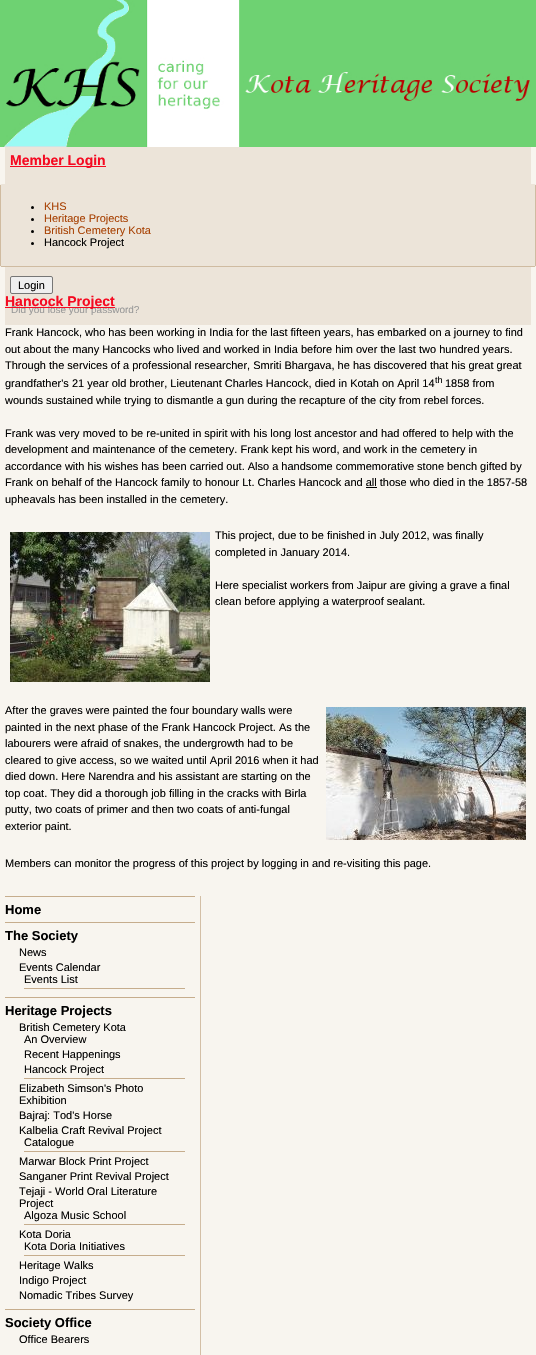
void draw(SkCanvas* canvas) {
    SkPaint paint;
    paint.setAntiAlias(true);
    canvas->clear(0xFFF8F5EF);
    canvas->drawImageRect(SkImages::DeferredFromEncodedData(SkData::MakeFromFileName("img1.png")), SkRect::MakeXYWH(0, 0, 536, 147), SkSamplingOptions());
    paint.setColor(0xFFECE4D9);
    canvas->drawRect(SkRect::MakeXYWH(5, 147, 526, 178), paint);
    paint.setColor(0xFFF50A21);
    canvas->drawRect(SkRect::MakeXYWH(10, 166, 96, 1), paint);
    SkFont font1(fontMgr->matchFamilyStyle("Liberation Sans", SkFontStyle::Bold()), 14);
    font1.setSubpixel(true);
    canvas->drawString("Member Login", 10, 165, font1, paint);
    paint.setColor(0xFFEFEFEF);
    canvas->drawRoundRect(SkRect::MakeXYWH(10.5f, 276.5f, 42, 17), 1.5f, 1.5f, paint);
    paint.setStyle(SkPaint::kStroke_Style);
    paint.setStrokeWidth(1);
    paint.setColor(0xFF767676);
    canvas->drawRoundRect(SkRect::MakeXYWH(10.5f, 276.5f, 42, 17), 1.5f, 1.5f, paint);
    SkFont font2(fontMgr->matchFamilyStyle("Liberation Sans", SkFontStyle::Normal()), 11);
    font2.setSubpixel(true);
    paint.setStyle(SkPaint::kFill_Style);
    paint.setColor(0xFF000000);
    canvas->drawString("Login", 18, 289, font2, paint);
    SkFont font3(fontMgr->matchFamilyStyle("Liberation Sans", SkFontStyle::Normal()), 10);
    font3.setSubpixel(true);
    paint.setColor(0xFF999999);
    canvas->drawString("Did you lose your password?", 11, 313, font3, paint);
    paint.setColor(0xFFECE4D9);
    canvas->drawRoundRect(SkRect::MakeXYWH(0, 184, 536, 83), 2, 2, paint);
    paint.setColor(0xBFC6AD8D);
    canvas->drawRect(SkRect::MakeXYWH(535, 185, 1, 81), paint);
    canvas->drawRect(SkRect::MakeXYWH(1, 266, 534, 1), paint);
    paint.setColor(0xFFD0BBA0);
    canvas->drawRect(SkRect::MakeXYWH(0, 185, 1, 81), paint);
    paint.setColor(0xFF000000);
    canvas->drawCircle(32.5f, 207.5f, 1.5f, paint);
    paint.setColor(0xFFA84204);
    canvas->drawString("KHS", 44, 210, font2, paint);
    paint.setColor(0xFF000000);
    canvas->drawCircle(32.5f, 219.5f, 1.5f, paint);
    paint.setColor(0xFFA84204);
    canvas->drawString("Heritage Projects", 44, 222, font2, paint);
    paint.setColor(0xFF000000);
    canvas->drawCircle(32.5f, 231.5f, 1.5f, paint);
    paint.setColor(0xFFA84204);
    canvas->drawString("British Cemetery Kota", 44, 234, font2, paint);
    paint.setColor(0xFF000000);
    canvas->drawCircle(32.5f, 243.5f, 1.5f, paint);
    canvas->drawString("Hancock Project", 44, 246, font2, paint);
    paint.setColor(0xFFF50A21);
    canvas->drawRect(SkRect::MakeXYWH(5, 307, 110, 1), paint);
    canvas->drawString("Hancock Project", 5, 306, font1, paint);
    paint.setColor(0xFF000000);
    canvas->drawString("Frank Hancock, who has been working in India for the last fifteen years, has embarked on a journey to find", 5, 336, font2, paint);
    canvas->drawString("out about the many Hancocks who lived and worked in India before him over the last two hundred years.", 5, 353, font2, paint);
    canvas->drawString("Through the services of a professional researcher, Smriti Bhargava, he has discovered that his great great", 5, 369, font2, paint);
    canvas->drawString("grandfather's 21 year old brother, Lieutenant Charles Hancock, died in Kotah on April 14", 5, 387, font2, paint);
    SkFont font4(fontMgr->matchFamilyStyle("Liberation Sans", SkFontStyle::Normal()), 9);
    font4.setSubpixel(true);
    canvas->drawString("th", 435, 383, font4, paint);
    canvas->drawString("1858 from", 445, 387, font2, paint);
    canvas->drawString("wounds sustained while trying to dismantle a gun during the recapture of the city from rebel forces.", 5, 404, font2, paint);
    canvas->drawString("Frank was very moved to be re-united in spirit with his long lost ancestor and had offered to help with the", 5, 437, font2, paint);
    canvas->drawString("development and maintenance of the cemetery. Frank kept his word, and work in the cemetery in", 5, 453, font2, paint);
    canvas->drawString("accordance with his wishes has been carried out. Also a handsome commemorative stone bench gifted by", 5, 470, font2, paint);
    canvas->drawString("Frank on behalf of the Hancock family to honour Lt. Charles Hancock and all those who died in the 1857-58", 5, 486, font2, paint);
    canvas->drawRect(SkRect::MakeXYWH(366, 487, 11, 1), paint);
    canvas->drawString("upheavals has been installed in the cemetery.", 5, 503, font2, paint);
    canvas->drawImageRect(SkImages::DeferredFromEncodedData(SkData::MakeFromFileName("img2.png")), SkRect::MakeXYWH(10, 532, 200, 150), SkSamplingOptions());
    canvas->drawString("This project, due to be finished in July 2012, was finally", 215, 539, font2, paint);
    canvas->drawString("completed in January 2014.", 215, 556, font2, paint);
    canvas->drawString("Here specialist workers from Jaipur are giving a grave a final", 215, 589, font2, paint);
    canvas->drawString("clean before applying a waterproof sealant.", 215, 605, font2, paint);
    canvas->drawString("After the graves were painted the four boundary walls were", 5, 714, font2, paint);
    canvas->drawString("painted in the next phase of the Frank Hancock Project. As the", 5, 731, font2, paint);
    canvas->drawString("labourers were afraid of snakes, the undergrowth had to be", 5, 747, font2, paint);
    canvas->drawString("cleared to give access, so we waited until April 2016 when it had", 5, 764, font2, paint);
    canvas->drawString("died down. Here Narendra and his assistant are starting on the", 5, 780, font2, paint);
    canvas->drawString("top coat. They did a thorough job filling in the cracks with Birla", 5, 797, font2, paint);
    canvas->drawString("putty, two coats of primer and then two coats of anti-fungal", 5, 813, font2, paint);
    canvas->drawString("exterior paint.", 5, 830, font2, paint);
    canvas->drawImageRect(SkImages::DeferredFromEncodedData(SkData::MakeFromFileName("img3.png")), SkRect::MakeXYWH(326, 707, 200, 133), SkSamplingOptions());
    canvas->drawString("Members can monitor the progress of this project by logging in and re-visiting this page.", 5, 867, font2, paint);
    paint.setColor(0xFFD3BFA6);
    canvas->drawRect(SkRect::MakeXYWH(200, 896, 1, 459), paint);
    paint.setColor(0xFFC6AD8D);
    canvas->drawRect(SkRect::MakeXYWH(5, 896, 190, 1), paint);
    SkFont font5(fontMgr->matchFamilyStyle("Liberation Sans", SkFontStyle::Bold()), 13);
    font5.setSubpixel(true);
    paint.setColor(0xFF000000);
    canvas->drawString("Home", 5, 914, font5, paint);
    paint.setColor(0xFFC6AD8D);
    canvas->drawRect(SkRect::MakeXYWH(5, 922, 190, 1), paint);
    paint.setColor(0xFF000000);
    canvas->drawString("The Society", 5, 940, font5, paint);
    canvas->drawString("News", 19, 956, font2, paint);
    canvas->drawString("Events Calendar", 19, 971, font2, paint);
    paint.setColor(0xFFC6AD8D);
    canvas->drawRect(SkRect::MakeXYWH(24, 988, 161, 1), paint);
    paint.setColor(0xFF000000);
    canvas->drawString("Events List", 24, 983, font2, paint);
    paint.setColor(0xFFC6AD8D);
    canvas->drawRect(SkRect::MakeXYWH(5, 997, 190, 1), paint);
    paint.setColor(0xFF000000);
    canvas->drawString("Heritage Projects", 5, 1015, font5, paint);
    canvas->drawString("British Cemetery Kota", 19, 1031, font2, paint);
    paint.setColor(0xFFC6AD8D);
    canvas->drawRect(SkRect::MakeXYWH(24, 1078, 161, 1), paint);
    paint.setColor(0xFF000000);
    canvas->drawString("An Overview", 24, 1043, font2, paint);
    canvas->drawString("Recent Happenings", 24, 1058, font2, paint);
    canvas->drawString("Hancock Project", 24, 1073, font2, paint);
    canvas->drawString("Elizabeth Simson's Photo", 19, 1092, font2, paint);
    canvas->drawString("Exhibition", 19, 1104, font2, paint);
    canvas->drawString("Bajraj: Tod's Horse", 19, 1119, font2, paint);
    canvas->drawString("Kalbelia Craft Revival Project", 19, 1134, font2, paint);
    paint.setColor(0xFFC6AD8D);
    canvas->drawRect(SkRect::MakeXYWH(24, 1151, 161, 1), paint);
    paint.setColor(0xFF000000);
    canvas->drawString("Catalogue", 24, 1146, font2, paint);
    canvas->drawString("Marwar Block Print Project", 19, 1165, font2, paint);
    canvas->drawString("Sanganer Print Revival Project", 19, 1180, font2, paint);
    canvas->drawString("Tejaji - World Oral Literature", 19, 1195, font2, paint);
    canvas->drawString("Project", 19, 1207, font2, paint);
    paint.setColor(0xFFC6AD8D);
    canvas->drawRect(SkRect::MakeXYWH(24, 1224, 161, 1), paint);
    paint.setColor(0xFF000000);
    canvas->drawString("Algoza Music School", 24, 1219, font2, paint);
    canvas->drawString("Kota Doria", 19, 1238, font2, paint);
    paint.setColor(0xFFC6AD8D);
    canvas->drawRect(SkRect::MakeXYWH(24, 1255, 161, 1), paint);
    paint.setColor(0xFF000000);
    canvas->drawString("Kota Doria Initiatives", 24, 1250, font2, paint);
    canvas->drawString("Heritage Walks", 19, 1269, font2, paint);
    canvas->drawString("Indigo Project", 19, 1284, font2, paint);
    canvas->drawString("Nomadic Tribes Survey", 19, 1299, font2, paint);
    paint.setColor(0xFFC6AD8D);
    canvas->drawRect(SkRect::MakeXYWH(5, 1309, 190, 1), paint);
    paint.setColor(0xFF000000);
    canvas->drawString("Society Office", 5, 1327, font5, paint);
    canvas->drawString("Office Bearers", 19, 1343, font2, paint);
}
